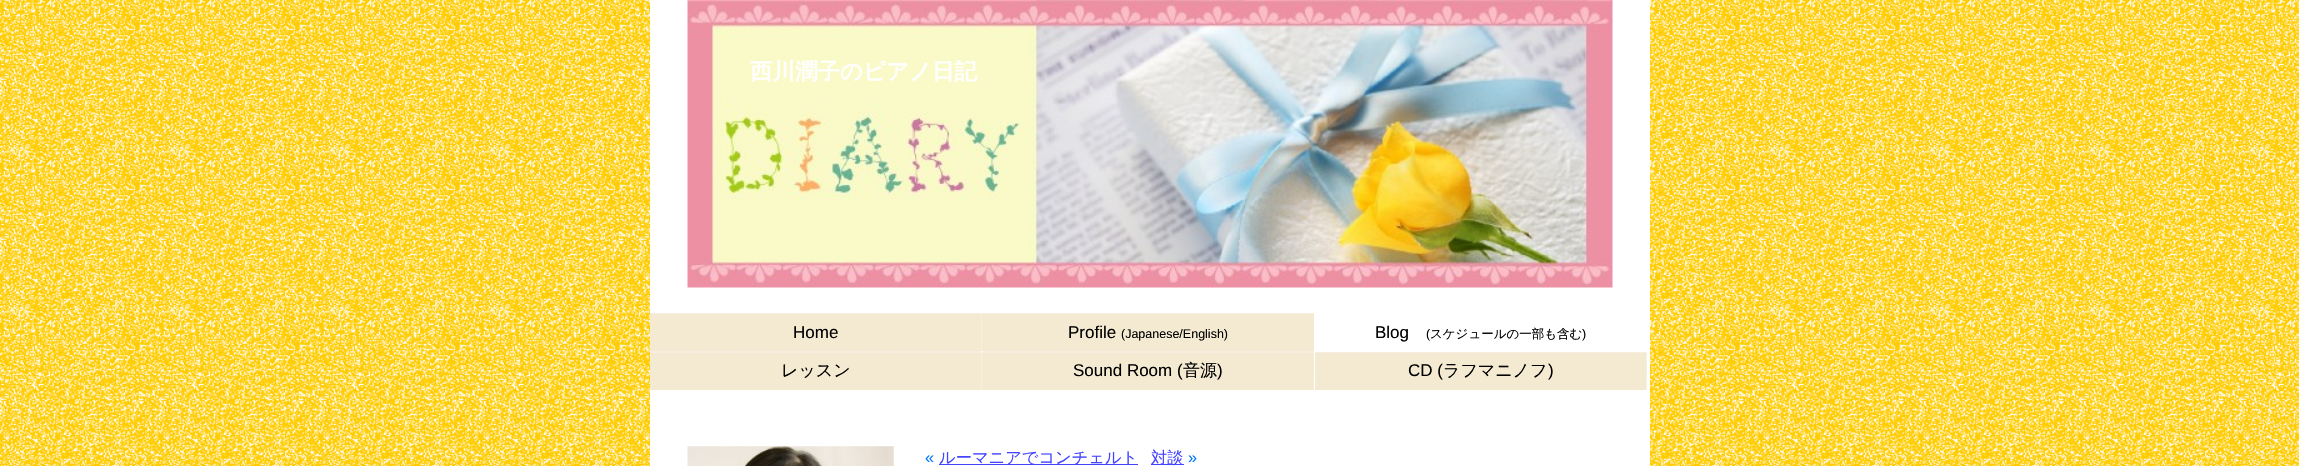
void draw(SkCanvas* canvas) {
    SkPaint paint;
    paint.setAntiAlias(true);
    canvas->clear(0xFFFFFFFF);
    canvas->drawImageRect(SkImages::DeferredFromEncodedData(SkData::MakeFromFileName("img1.png")), SkRect::MakeXYWH(0, 0, 2299, 466), SkSamplingOptions());
    paint.setColor(0xFFFFFFFF);
    canvas->drawRect(SkRect::MakeXYWH(650, 0, 1000, 466), paint);
    canvas->drawImageRect(SkImages::DeferredFromEncodedData(SkData::MakeFromFileName("img2.png")), SkRect::MakeXYWH(687, 0, 926, 288), SkSamplingOptions());
    SkFont font1(fontMgr->matchFamilyStyle("WenQuanYi Zen Hei", SkFontStyle::Bold()), 22.5f);
    font1.setSubpixel(true);
    canvas->drawString("西川潤子のピアノ日記", 750, 79, font1, paint);
    paint.setColor(0xFFF4EAD2);
    canvas->drawRect(SkRect::MakeXYWH(650, 313, 332, 77), paint);
    paint.setStyle(SkPaint::kStroke_Style);
    paint.setStrokeWidth(1.2f);
    paint.setColor(0xFFFFFFFF);
    paint.setPathEffect(SkDashPathEffect::Make({{1.25f, 1.25f}}, 0));
    canvas->drawPath(SkPathBuilder().moveTo(650, 313).lineTo(982.5f, 313).detach(), paint);
    paint.setPathEffect(nullptr);
    paint.setPathEffect(SkDashPathEffect::Make({{1.25f, 1.25f}}, 0));
    canvas->drawPath(SkPathBuilder().moveTo(982, 312.5f).lineTo(982, 351).detach(), paint);
    paint.setPathEffect(nullptr);
    SkFont font2(fontMgr->matchFamilyStyle("Liberation Sans", SkFontStyle::Normal()), 17);
    font2.setSubpixel(true);
    paint.setStyle(SkPaint::kFill_Style);
    paint.setColor(0xFF000000);
    canvas->drawString("Home", 793, 338, font2, paint);
    paint.setColor(0xFFF4EAD2);
    canvas->drawRect(SkRect::MakeXYWH(982, 313, 332, 39), paint);
    paint.setStyle(SkPaint::kStroke_Style);
    paint.setColor(0xFFFFFFFF);
    paint.setPathEffect(SkDashPathEffect::Make({{1.25f, 1.25f}}, 0));
    canvas->drawPath(SkPathBuilder().moveTo(982.5f, 313).lineTo(1315, 313).detach(), paint);
    paint.setPathEffect(nullptr);
    paint.setPathEffect(SkDashPathEffect::Make({{1.25f, 1.25f}}, 0));
    canvas->drawPath(SkPathBuilder().moveTo(1314.5f, 312.5f).lineTo(1314.5f, 351).detach(), paint);
    paint.setPathEffect(nullptr);
    paint.setStyle(SkPaint::kFill_Style);
    paint.setColor(0xFF000000);
    canvas->drawString("Profile", 1068, 338, font2, paint);
    SkFont font3(fontMgr->matchFamilyStyle("Liberation Sans", SkFontStyle::Normal()), 12.5f);
    font3.setSubpixel(true);
    canvas->drawString("(Japanese/English)", 1121, 338, font3, paint);
    canvas->drawString("Blog", 1375, 338, font2, paint);
    canvas->drawString("(", 1426, 338, font3, paint);
    SkFont font4(fontMgr->matchFamilyStyle("WenQuanYi Zen Hei", SkFontStyle(500, SkFontStyle::kNormal_Width, SkFontStyle::kUpright_Slant)), 12.5f);
    font4.setSubpixel(true);
    canvas->drawString("スケジュールの一部も含む", 1430, 338, font4, paint);
    canvas->drawString(")", 1582, 338, font3, paint);
    paint.setStyle(SkPaint::kStroke_Style);
    paint.setColor(0xFFFFFFFF);
    paint.setPathEffect(SkDashPathEffect::Make({{1.25f, 1.25f}}, 0));
    canvas->drawPath(SkPathBuilder().moveTo(650, 352).lineTo(982.5f, 352).detach(), paint);
    paint.setPathEffect(nullptr);
    paint.setPathEffect(SkDashPathEffect::Make({{1.25f, 1.25f}}, 0));
    canvas->drawPath(SkPathBuilder().moveTo(982, 351).lineTo(982, 390).detach(), paint);
    paint.setPathEffect(nullptr);
    SkFont font5(fontMgr->matchFamilyStyle("WenQuanYi Zen Hei", SkFontStyle(500, SkFontStyle::kNormal_Width, SkFontStyle::kUpright_Slant)), 17);
    font5.setSubpixel(true);
    paint.setStyle(SkPaint::kFill_Style);
    paint.setColor(0xFF000000);
    canvas->drawString("レッスン", 781, 376, font5, paint);
    paint.setColor(0xFFF4EAD2);
    canvas->drawRect(SkRect::MakeXYWH(982, 352, 332, 38), paint);
    paint.setStyle(SkPaint::kStroke_Style);
    paint.setColor(0xFFFFFFFF);
    paint.setPathEffect(SkDashPathEffect::Make({{1.25f, 1.25f}}, 0));
    canvas->drawPath(SkPathBuilder().moveTo(982.5f, 352).lineTo(1315, 352).detach(), paint);
    paint.setPathEffect(nullptr);
    paint.setPathEffect(SkDashPathEffect::Make({{1.25f, 1.25f}}, 0));
    canvas->drawPath(SkPathBuilder().moveTo(1314.5f, 351).lineTo(1314.5f, 390).detach(), paint);
    paint.setPathEffect(nullptr);
    paint.setStyle(SkPaint::kFill_Style);
    paint.setColor(0xFF000000);
    canvas->drawString("Sound Room (", 1073, 376, font2, paint);
    canvas->drawString("音源", 1183, 376, font5, paint);
    canvas->drawString(")", 1217, 376, font2, paint);
    paint.setColor(0xFFF4EAD2);
    canvas->drawRect(SkRect::MakeXYWH(1315, 352, 332, 38), paint);
    paint.setStyle(SkPaint::kStroke_Style);
    paint.setColor(0xFFFFFFFF);
    paint.setPathEffect(SkDashPathEffect::Make({{1.25f, 1.25f}}, 0));
    canvas->drawPath(SkPathBuilder().moveTo(1315, 352).lineTo(1647.5f, 352).detach(), paint);
    paint.setPathEffect(nullptr);
    paint.setPathEffect(SkDashPathEffect::Make({{1.25f, 1.25f}}, 0));
    canvas->drawPath(SkPathBuilder().moveTo(1647, 351).lineTo(1647, 390).detach(), paint);
    paint.setPathEffect(nullptr);
    paint.setStyle(SkPaint::kFill_Style);
    paint.setColor(0xFF000000);
    canvas->drawString("CD (", 1408, 376, font2, paint);
    canvas->drawString("ラフマニノフ", 1443, 376, font5, paint);
    canvas->drawString(")", 1548, 376, font2, paint);
    canvas->drawImageRect(SkImages::DeferredFromEncodedData(SkData::MakeFromFileName("img3.png")), SkRect::MakeXYWH(687, 446, 207, 20), SkSamplingOptions());
    SkFont font6(fontMgr->matchFamilyStyle("Liberation Sans", SkFontStyle::Normal()), 16.25f);
    font6.setSubpixel(true);
    paint.setColor(0xFF0077FF);
    canvas->drawString("«", 925, 463, font6, paint);
    paint.setColor(0xFF4444FF);
    canvas->drawRect(SkRect::MakeXYWH(939, 464, 199, 1), paint);
    SkFont font7(fontMgr->matchFamilyStyle("WenQuanYi Zen Hei", SkFontStyle(500, SkFontStyle::kNormal_Width, SkFontStyle::kUpright_Slant)), 16.25f);
    font7.setSubpixel(true);
    canvas->drawString("ルーマニアでコンチェルト", 939, 463, font7, paint);
    canvas->drawRect(SkRect::MakeXYWH(1151, 464, 33, 1), paint);
    canvas->drawString("対談", 1151, 463, font7, paint);
    paint.setColor(0xFF0077FF);
    canvas->drawString("»", 1188, 463, font6, paint);
}
